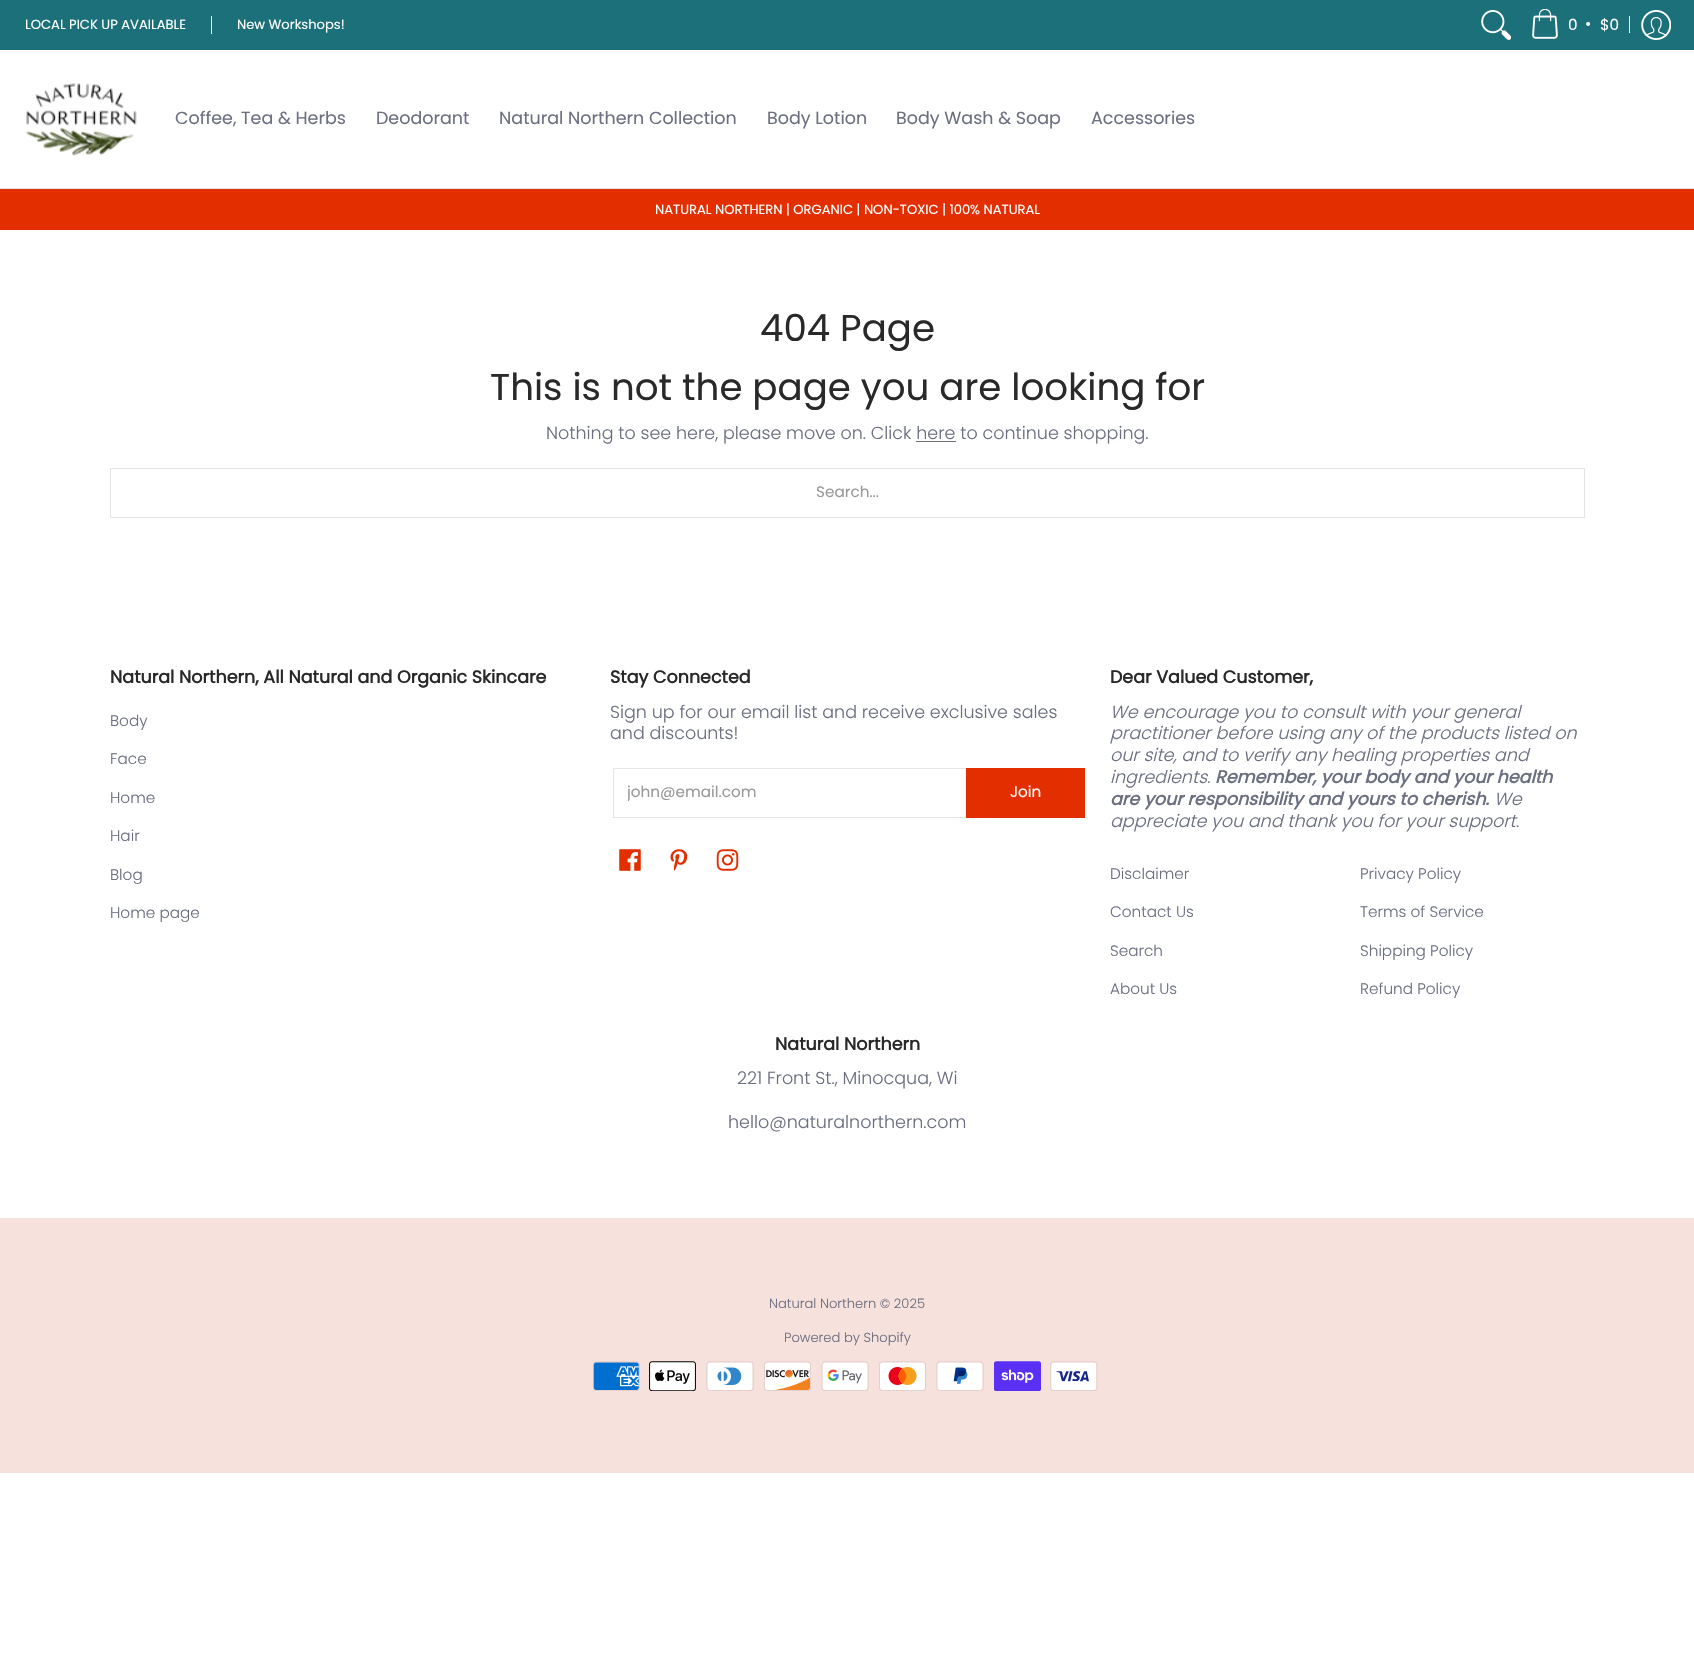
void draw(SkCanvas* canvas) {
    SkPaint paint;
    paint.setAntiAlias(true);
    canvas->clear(0xFFFFFFFF);
    paint.setColor(0xFF1C7079);
    canvas->drawRect(SkRect::MakeXYWH(0, 0, 1694, 50), paint);
    SkFont font1(fontMgr->matchFamilyStyle("Poppins", SkFontStyle::Normal()), 13.1f);
    font1.setSubpixel(true);
    paint.setColor(0xFFFFFFFF);
    canvas->drawString("LOCAL PICK UP AVAILABLE", 25, 29, font1, paint);
    canvas->drawRect(SkRect::MakeXYWH(211, 16, 1, 18), paint);
    canvas->drawString("New Workshops!", 237, 29, font1, paint);
    canvas->drawImageRect(SkImages::DeferredFromEncodedData(SkData::MakeFromFileName("img1.png")), SkRect::MakeXYWH(1481, 10, 30, 30), SkSamplingOptions());
    canvas->drawImageRect(SkImages::DeferredFromEncodedData(SkData::MakeFromFileName("img2.png")), SkRect::MakeXYWH(1532, 9, 26, 30), SkSamplingOptions());
    SkFont font2(fontMgr->matchFamilyStyle("Poppins", SkFontStyle::Normal()), 15.25f);
    font2.setSubpixel(true);
    canvas->drawString("0", 1568, 30, font2, paint);
    canvas->drawString("•", 1585, 29, font2, paint);
    canvas->drawString("$0", 1600, 30, font2, paint);
    canvas->drawRect(SkRect::MakeXYWH(1629, 16, 1, 17), paint);
    canvas->drawImageRect(SkImages::DeferredFromEncodedData(SkData::MakeFromFileName("img3.png")), SkRect::MakeXYWH(1641, 10, 30, 30), SkSamplingOptions());
    paint.setColor(0xFFE7E2E5);
    canvas->drawRect(SkRect::MakeXYWH(0, 188, 1694, 1), paint);
    canvas->drawImageRect(SkImages::DeferredFromEncodedData(SkData::MakeFromFileName("img4.png")), SkRect::MakeXYWH(26, 83, 111, 73), SkSamplingOptions());
    SkFont font3(fontMgr->matchFamilyStyle("Poppins", SkFontStyle::Normal()), 17.5f);
    font3.setSubpixel(true);
    paint.setColor(0xFF6B6F81);
    canvas->drawString("Coffee, Tea & Herbs", 175, 124, font3, paint);
    canvas->drawString("Deodorant", 376, 124, font3, paint);
    canvas->drawString("Natural Northern Collection", 499, 124, font3, paint);
    canvas->drawString("Body Lotion", 767, 124, font3, paint);
    canvas->drawString("Body Wash & Soap", 896, 124, font3, paint);
    canvas->drawString("Accessories", 1091, 124, font3, paint);
    paint.setColor(0xFFE32E00);
    canvas->drawRect(SkRect::MakeXYWH(0, 189, 1694, 41), paint);
    paint.setColor(0xFFFFFFFF);
    canvas->drawString("NATURAL NORTHERN | ORGANIC | NON-TOXIC | 100% NATURAL", 655, 214, font1, paint);
    SkFont font4(fontMgr->matchFamilyStyle("Poppins", SkFontStyle::Normal()), 37.2f);
    font4.setSubpixel(true);
    paint.setColor(0xFF292929);
    canvas->drawString("404 Page", 760, 341, font4, paint);
    canvas->drawString("This is not the page you are looking for", 490, 400, font4, paint);
    SkFont font5(fontMgr->matchFamilyStyle("Poppins", SkFontStyle(300, SkFontStyle::kNormal_Width, SkFontStyle::kUpright_Slant)), 17.5f);
    font5.setSubpixel(true);
    paint.setColor(0xFF6B6F81);
    canvas->drawString("Nothing to see here, please move on. Click here to continue shopping.", 546, 439, font5, paint);
    canvas->drawRect(SkRect::MakeXYWH(916, 441, 40, 1), paint);
    paint.setStyle(SkPaint::kStroke_Style);
    paint.setStrokeWidth(1);
    paint.setColor(0xFFE7E2E5);
    canvas->drawRect(SkRect::MakeXYWH(110.5f, 468.5f, 1474, 49), paint);
    paint.setStyle(SkPaint::kFill_Style);
    paint.setColor(0xFF989898);
    canvas->drawString("Search...", 816, 497, font2, paint);
    SkFont font6(fontMgr->matchFamilyStyle("Poppins", SkFontStyle::Bold()), 17.5f);
    font6.setSubpixel(true);
    paint.setColor(0xFF292929);
    canvas->drawString("Natural Northern, All Natural and Organic Skincare", 110, 683, font6, paint);
    SkFont font7(fontMgr->matchFamilyStyle("Poppins", SkFontStyle(300, SkFontStyle::kNormal_Width, SkFontStyle::kUpright_Slant)), 15.25f);
    font7.setSubpixel(true);
    paint.setColor(0xFF6B6F81);
    canvas->drawString("Body", 110, 726, font7, paint);
    canvas->drawString("Face", 110, 764, font7, paint);
    canvas->drawString("Home", 110, 803, font7, paint);
    canvas->drawString("Hair", 110, 841, font7, paint);
    canvas->drawString("Blog", 110, 880, font7, paint);
    canvas->drawString("Home page", 110, 918, font7, paint);
    paint.setColor(0xFF292929);
    canvas->drawString("Stay Connected", 610, 683, font6, paint);
    paint.setColor(0xFF6B6F81);
    canvas->drawString("Sign up for our email list and receive exclusive sales", 610, 718, font5, paint);
    canvas->drawString("and discounts!", 610, 739, font5, paint);
    paint.setStyle(SkPaint::kStroke_Style);
    paint.setColor(0xFFE7E2E5);
    canvas->drawRect(SkRect::MakeXYWH(613.5f, 768.5f, 355, 49), paint);
    canvas->save();
    canvas->clipRect(SkRect::MakeXYWH(628, 781, 326, 23));
    paint.setStyle(SkPaint::kFill_Style);
    paint.setColor(0xFF989898);
    canvas->drawString("john@email.com", 627, 797, font2, paint);
    canvas->restore();
    paint.setColor(0xFFE32E00);
    canvas->drawRect(SkRect::MakeXYWH(966, 768, 119, 50), paint);
    paint.setColor(0xFFFFFFFF);
    canvas->drawString("Join", 1010, 797, font2, paint);
    canvas->drawImageRect(SkImages::DeferredFromEncodedData(SkData::MakeFromFileName("img5.png")), SkRect::MakeXYWH(619, 849, 22, 22), SkSamplingOptions());
    canvas->drawImageRect(SkImages::DeferredFromEncodedData(SkData::MakeFromFileName("img6.png")), SkRect::MakeXYWH(670, 849, 18, 22), SkSamplingOptions());
    canvas->drawImageRect(SkImages::DeferredFromEncodedData(SkData::MakeFromFileName("img7.png")), SkRect::MakeXYWH(716, 849, 23, 22), SkSamplingOptions());
    paint.setColor(0xFF292929);
    canvas->drawString("Dear Valued Customer,", 1110, 683, font6, paint);
    SkFont font8(fontMgr->matchFamilyStyle("Poppins", SkFontStyle(300, SkFontStyle::kNormal_Width, SkFontStyle::kItalic_Slant)), 17.5f);
    font8.setSubpixel(true);
    paint.setColor(0xFF6B6F81);
    canvas->drawString("We encourage you to consult with your general", 1110, 718, font8, paint);
    canvas->drawString("practitioner before using any of the products listed on", 1110, 739, font8, paint);
    canvas->drawString("our site, and to verify any healing properties and", 1110, 761, font8, paint);
    canvas->drawString("ingredients.", 1110, 783, font8, paint);
    SkFont font9(fontMgr->matchFamilyStyle("Poppins", SkFontStyle::BoldItalic()), 17.5f);
    font9.setSubpixel(true);
    canvas->drawString("Remember, your body and your health", 1215, 783, font9, paint);
    canvas->drawString("are your responsibility and yours to cherish.", 1110, 805, font9, paint);
    canvas->drawString("We", 1494, 805, font8, paint);
    canvas->drawString("appreciate you and thank you for your support.", 1110, 827, font8, paint);
    canvas->drawString("Disclaimer", 1110, 879, font7, paint);
    canvas->drawString("Contact Us", 1110, 917, font7, paint);
    canvas->drawString("Search", 1110, 956, font7, paint);
    canvas->drawString("About Us", 1110, 994, font7, paint);
    canvas->drawString("Privacy Policy", 1360, 879, font7, paint);
    canvas->drawString("Terms of Service", 1360, 917, font7, paint);
    canvas->drawString("Shipping Policy", 1360, 956, font7, paint);
    canvas->drawString("Refund Policy", 1360, 994, font7, paint);
    paint.setColor(0xFF292929);
    canvas->drawString("Natural Northern", 775, 1050, font6, paint);
    paint.setColor(0xFF6B6F81);
    canvas->drawString("221 Front St., Minocqua, Wi", 737, 1084, font5, paint);
    canvas->drawString("hello@naturalnorthern.com", 728, 1128, font5, paint);
    paint.setColor(0xFFF6E1DC);
    canvas->drawRect(SkRect::MakeXYWH(0, 1218, 1694, 255), paint);
    SkFont font10(fontMgr->matchFamilyStyle("Poppins", SkFontStyle(300, SkFontStyle::kNormal_Width, SkFontStyle::kUpright_Slant)), 13.1f);
    font10.setSubpixel(true);
    paint.setColor(0xFF6B6F81);
    canvas->drawString("Natural Northern © 2025", 769, 1308, font10, paint);
    canvas->drawString("Powered by Shopify", 784, 1342, font10, paint);
    canvas->drawImageRect(SkImages::DeferredFromEncodedData(SkData::MakeFromFileName("img8.png")), SkRect::MakeXYWH(593, 1361, 47, 30), SkSamplingOptions());
    canvas->drawImageRect(SkImages::DeferredFromEncodedData(SkData::MakeFromFileName("img9.png")), SkRect::MakeXYWH(649, 1361, 47, 30), SkSamplingOptions());
    canvas->drawImageRect(SkImages::DeferredFromEncodedData(SkData::MakeFromFileName("img10.png")), SkRect::MakeXYWH(706, 1361, 48, 30), SkSamplingOptions());
    canvas->drawImageRect(SkImages::DeferredFromEncodedData(SkData::MakeFromFileName("img11.png")), SkRect::MakeXYWH(764, 1361, 47, 30), SkSamplingOptions());
    canvas->drawImageRect(SkImages::DeferredFromEncodedData(SkData::MakeFromFileName("img12.png")), SkRect::MakeXYWH(821, 1361, 48, 30), SkSamplingOptions());
    canvas->drawImageRect(SkImages::DeferredFromEncodedData(SkData::MakeFromFileName("img13.png")), SkRect::MakeXYWH(879, 1361, 47, 30), SkSamplingOptions());
    canvas->drawImageRect(SkImages::DeferredFromEncodedData(SkData::MakeFromFileName("img14.png")), SkRect::MakeXYWH(936, 1361, 48, 30), SkSamplingOptions());
    canvas->drawImageRect(SkImages::DeferredFromEncodedData(SkData::MakeFromFileName("img15.png")), SkRect::MakeXYWH(994, 1361, 47, 30), SkSamplingOptions());
    canvas->drawImageRect(SkImages::DeferredFromEncodedData(SkData::MakeFromFileName("img16.png")), SkRect::MakeXYWH(1050, 1361, 48, 30), SkSamplingOptions());
}
